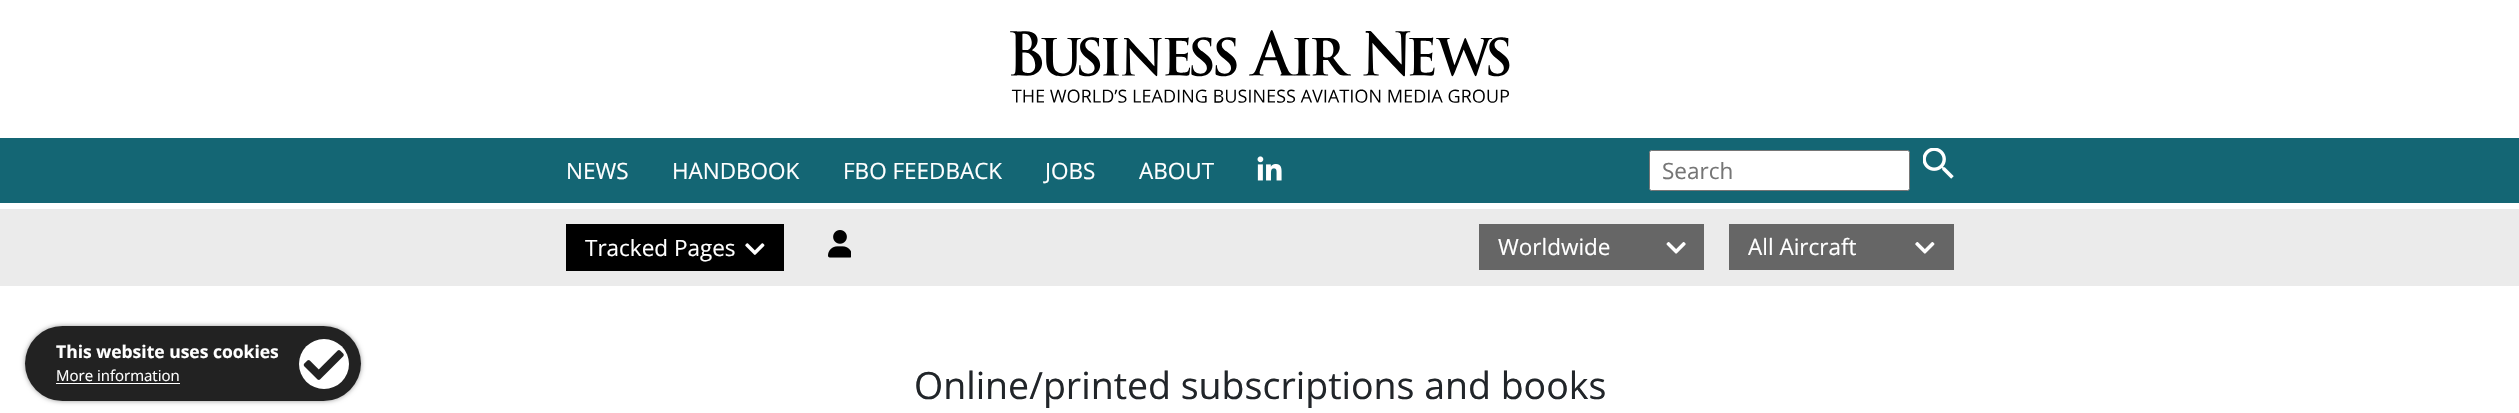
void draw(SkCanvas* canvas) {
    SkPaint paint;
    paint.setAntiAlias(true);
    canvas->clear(0xFFFFFFFF);
    canvas->drawImageRect(SkImages::DeferredFromEncodedData(SkData::MakeFromFileName("img1.png")), SkRect::MakeXYWH(1010, 30, 500, 73), SkSamplingOptions());
    paint.setColor(0xFF146674);
    canvas->drawRect(SkRect::MakeXYWH(0, 138, 2519, 65), paint);
    SkFont font1(fontMgr->matchFamilyStyle("Open Sans", SkFontStyle::Normal()), 22.5f);
    font1.setSubpixel(true);
    paint.setColor(0xFFFFFFFF);
    canvas->drawString("NEWS", 566, 179, font1, paint);
    canvas->drawString("HANDBOOK", 672, 179, font1, paint);
    canvas->drawString("FBO FEEDBACK", 843, 179, font1, paint);
    canvas->drawString("JOBS", 1045, 179, font1, paint);
    canvas->drawString("ABOUT", 1139, 179, font1, paint);
    canvas->drawImageRect(SkImages::DeferredFromEncodedData(SkData::MakeFromFileName("img2.png")), SkRect::MakeXYWH(1257, 156, 25, 25), SkSamplingOptions());
    canvas->drawRoundRect(SkRect::MakeXYWH(1649.5f, 150.5f, 260, 40), 2, 2, paint);
    paint.setStyle(SkPaint::kStroke_Style);
    paint.setStrokeWidth(1);
    paint.setColor(0xFF767676);
    canvas->drawRoundRect(SkRect::MakeXYWH(1649.5f, 150.5f, 260, 40), 2, 2, paint);
    paint.setStyle(SkPaint::kFill_Style);
    paint.setColor(0xFF757575);
    canvas->drawString("Search", 1662, 179, font1, paint);
    canvas->drawImageRect(SkImages::DeferredFromEncodedData(SkData::MakeFromFileName("img3.png")), SkRect::MakeXYWH(1923, 148, 31, 31), SkSamplingOptions());
    paint.setColor(0xFFEBEBEB);
    canvas->drawRect(SkRect::MakeXYWH(0, 209, 2519, 77), paint);
    paint.setColor(0xFF000000);
    canvas->drawRect(SkRect::MakeXYWH(566, 224, 218, 47), paint);
    paint.setColor(0xFFFFFFFF);
    canvas->drawString("Tracked Pages", 585, 256, font1, paint);
    canvas->drawImageRect(SkImages::DeferredFromEncodedData(SkData::MakeFromFileName("img4.png")), SkRect::MakeXYWH(745, 243, 20, 12), SkSamplingOptions());
    canvas->drawImageRect(SkImages::DeferredFromEncodedData(SkData::MakeFromFileName("img5.png")), SkRect::MakeXYWH(828, 230, 23, 28), SkSamplingOptions());
    paint.setColor(0xFF666666);
    canvas->drawRect(SkRect::MakeXYWH(1479, 224, 225, 46), paint);
    paint.setColor(0xFFFFFFFF);
    canvas->drawString("Worldwide", 1498, 255, font1, paint);
    canvas->drawImageRect(SkImages::DeferredFromEncodedData(SkData::MakeFromFileName("img6.png")), SkRect::MakeXYWH(1666, 242, 20, 12), SkSamplingOptions());
    paint.setColor(0xFF666666);
    canvas->drawRect(SkRect::MakeXYWH(1729, 224, 225, 46), paint);
    paint.setColor(0xFFFFFFFF);
    canvas->drawString("All Aircraft", 1748, 255, font1, paint);
    canvas->drawImageRect(SkImages::DeferredFromEncodedData(SkData::MakeFromFileName("img7.png")), SkRect::MakeXYWH(1915, 242, 20, 12), SkSamplingOptions());
    paint.setColor(0xFF999999);
    paint.setMaskFilter(SkMaskFilter::MakeBlur(kNormal_SkBlurStyle, 2.5f));
    canvas->drawRoundRect(SkRect::MakeXYWH(25, 326, 336, 75), 37.5f, 37.5f, paint);
    paint.setMaskFilter(nullptr);
    paint.setColor(0xFF222222);
    canvas->drawRoundRect(SkRect::MakeXYWH(25, 326, 336, 75), 37.5f, 37.5f, paint);
    SkFont font2(fontMgr->matchFamilyStyle("Open Sans", SkFontStyle::Bold()), 17.5f);
    font2.setSubpixel(true);
    paint.setColor(0xFFFFFFFF);
    canvas->drawString("This website uses cookies", 56, 358, font2, paint);
    SkFont font3(fontMgr->matchFamilyStyle("Open Sans", SkFontStyle::Normal()), 15);
    font3.setSubpixel(true);
    canvas->drawString("More information", 56, 381, font3, paint);
    canvas->drawRect(SkRect::MakeXYWH(56, 383, 124, 1), paint);
    canvas->drawCircle(324, 364, 25, paint);
    canvas->drawImageRect(SkImages::DeferredFromEncodedData(SkData::MakeFromFileName("img8.png")), SkRect::MakeXYWH(303, 350, 41, 30), SkSamplingOptions());
    SkFont font4(fontMgr->matchFamilyStyle("Open Sans", SkFontStyle::Normal()), 37.5f);
    font4.setSubpixel(true);
    paint.setColor(0xFF212529);
    canvas->drawString("Online/printed subscriptions and books", 914, 399, font4, paint);
}
